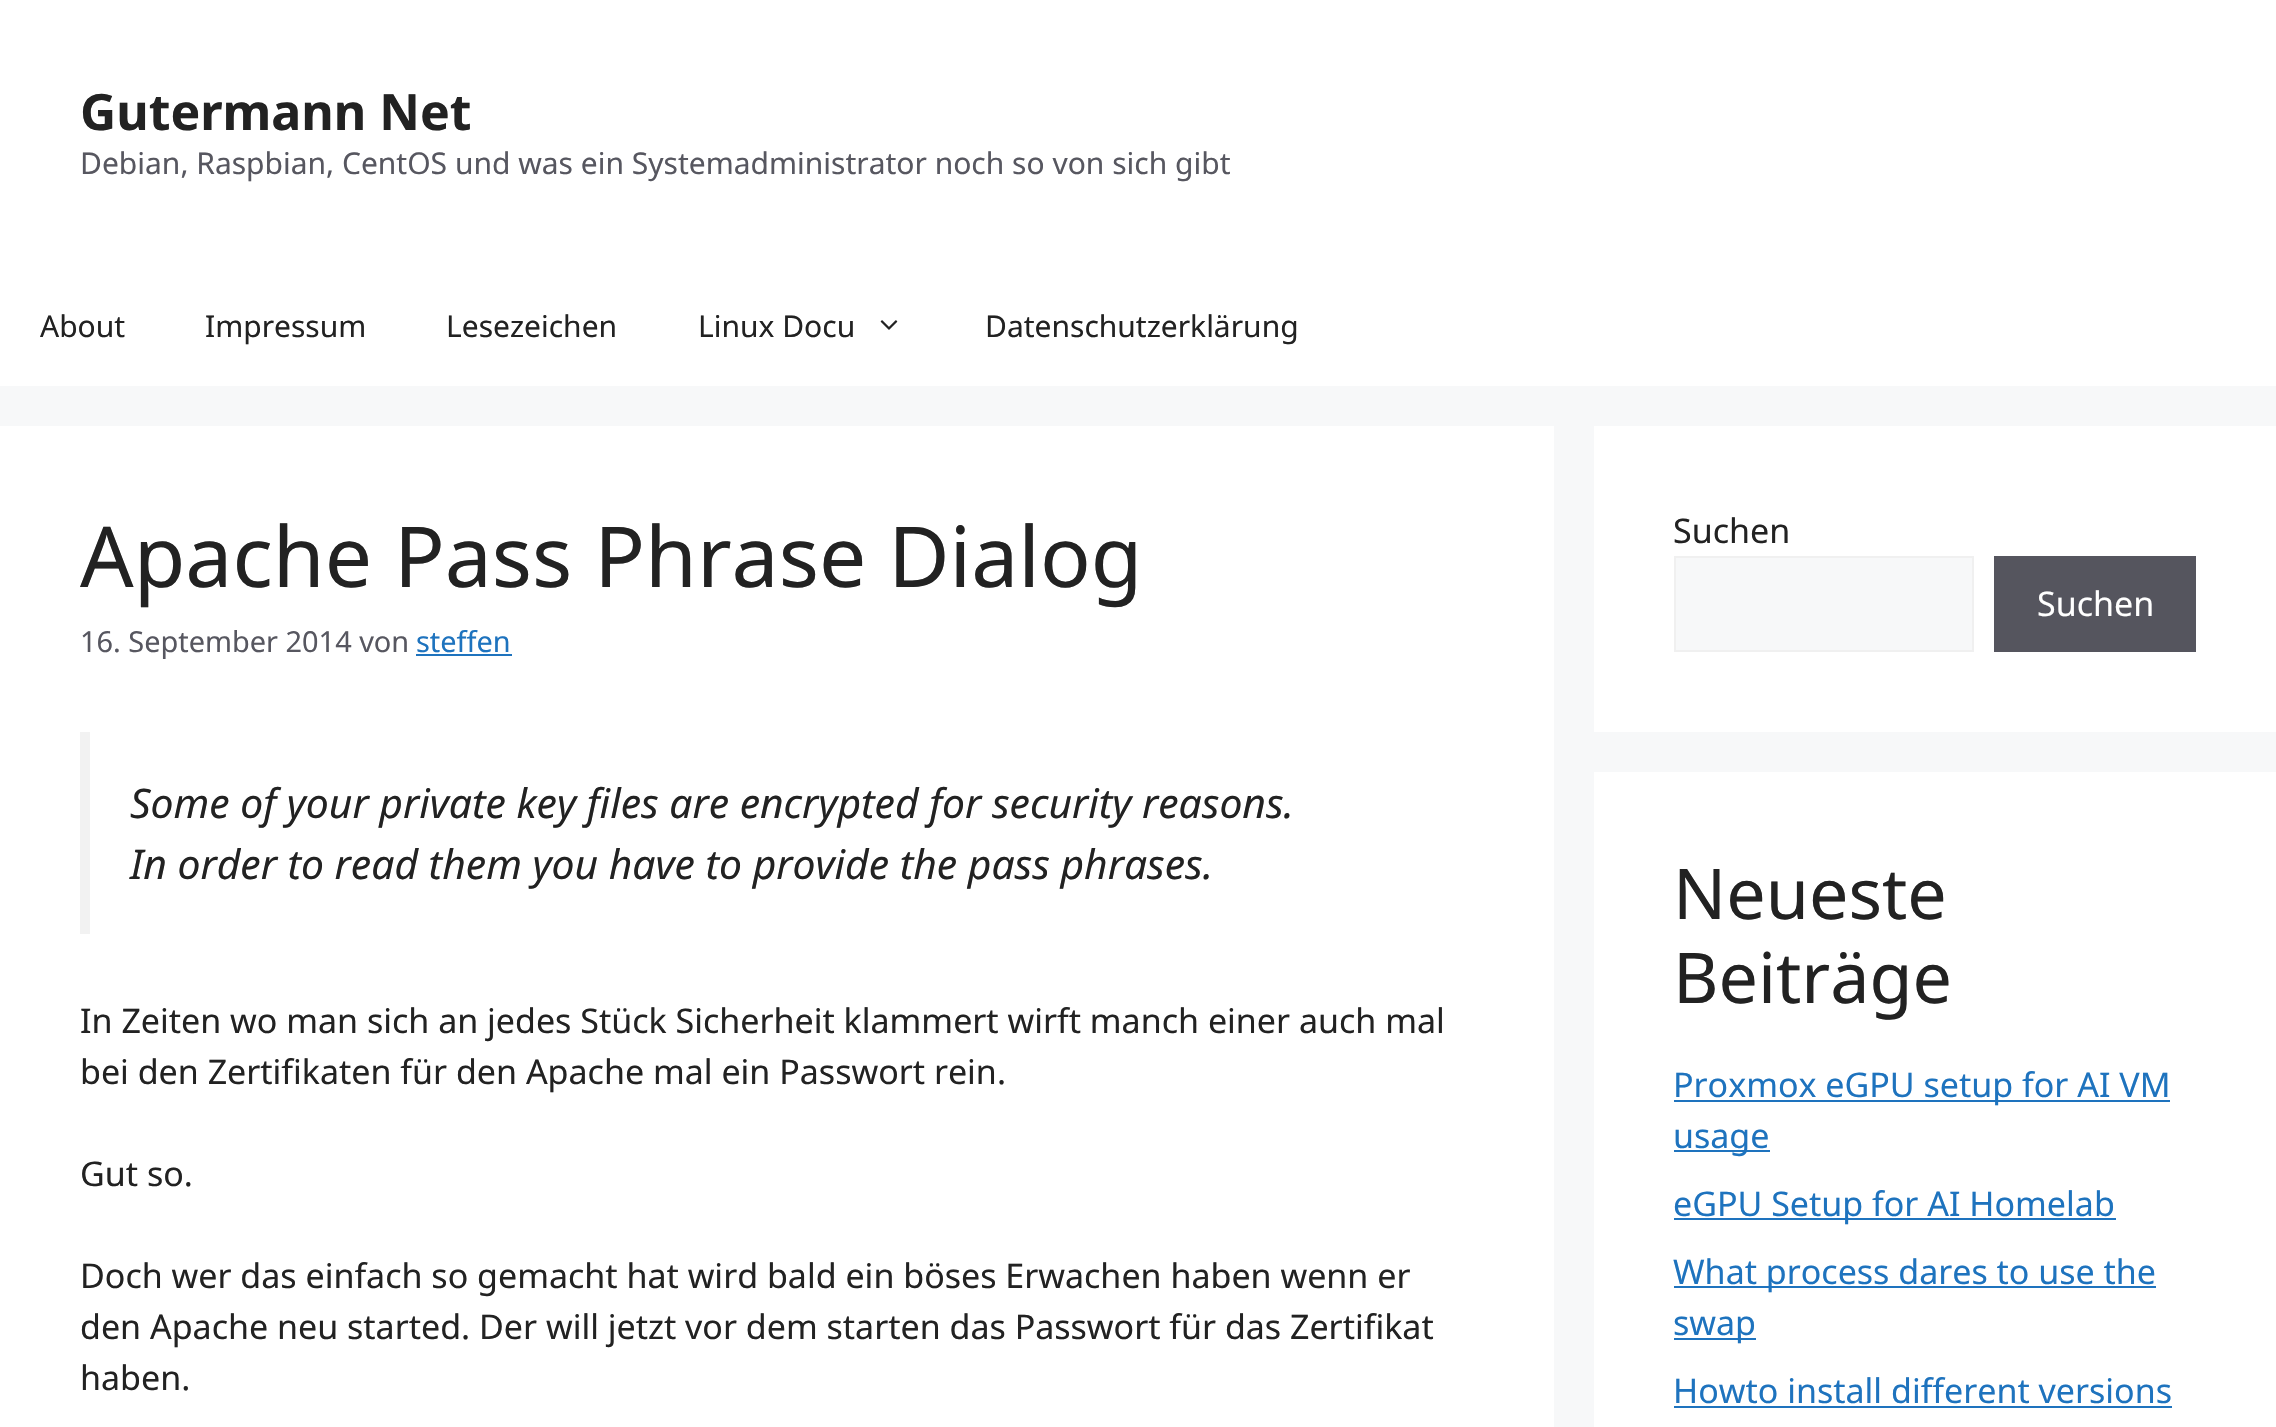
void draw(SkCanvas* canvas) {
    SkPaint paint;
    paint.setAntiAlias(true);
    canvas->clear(0xFFF7F8F9);
    paint.setColor(0xFFFFFFFF);
    canvas->drawRect(SkRect::MakeXYWH(0, 0, 2276, 386), paint);
    SkFont font1(fontMgr->matchFamilyStyle("Noto Sans", SkFontStyle::Bold()), 50);
    font1.setSubpixel(true);
    paint.setColor(0xFF222222);
    canvas->drawString("Gutermann Net", 80, 130, font1, paint);
    SkFont font2(fontMgr->matchFamilyStyle("Noto Sans", SkFontStyle::Normal()), 30);
    font2.setSubpixel(true);
    paint.setColor(0xFF575760);
    canvas->drawString("Debian, Raspbian, CentOS und was ein Systemadministrator noch so von sich gibt", 80, 174, font2, paint);
    paint.setColor(0xFF222222);
    canvas->drawString("About", 40, 337, font2, paint);
    canvas->drawString("Impressum", 205, 337, font2, paint);
    canvas->drawString("Lesezeichen", 446, 337, font2, paint);
    canvas->drawString("Linux Docu", 698, 337, font2, paint);
    canvas->drawImageRect(SkImages::DeferredFromEncodedData(SkData::MakeFromFileName("img1.png")), SkRect::MakeXYWH(880, 320, 18, 10), SkSamplingOptions());
    canvas->drawString("Datenschutzerklärung", 985, 337, font2, paint);
    paint.setColor(0xFFFFFFFF);
    canvas->drawRect(SkRect::MakeXYWH(0, 426, 1554, 1001), paint);
    SkFont font3(fontMgr->matchFamilyStyle("Noto Sans", SkFontStyle::Normal()), 84);
    font3.setSubpixel(true);
    paint.setColor(0xFF222222);
    canvas->drawString("Apache Pass Phrase Dialog", 80, 587, font3, paint);
    SkFont font4(fontMgr->matchFamilyStyle("Noto Sans", SkFontStyle::Normal()), 28.9f);
    font4.setSubpixel(true);
    paint.setColor(0xFF575760);
    canvas->drawString("16. September 2014 von", 80, 652, font4, paint);
    paint.setColor(0xFF1E73BE);
    canvas->drawString("steffen", 416, 652, font4, paint);
    canvas->drawRect(SkRect::MakeXYWH(416, 654, 96, 2), paint);
    paint.setColor(0xFFF2F2F2);
    canvas->drawRect(SkRect::MakeXYWH(80, 732, 10, 202), paint);
    SkFont font5(fontMgr->matchFamilyStyle("Noto Sans", SkFontStyle::Italic()), 40.8f);
    font5.setSubpixel(true);
    paint.setColor(0xFF222222);
    canvas->drawString("Some of your private key files are encrypted for security reasons.", 130, 818, font5, paint);
    canvas->drawString("In order to read them you have to provide the pass phrases.", 130, 879, font5, paint);
    SkFont font6(fontMgr->matchFamilyStyle("Noto Sans", SkFontStyle::Normal()), 34);
    font6.setSubpixel(true);
    canvas->drawString("In Zeiten wo man sich an jedes Stück Sicherheit klammert wirft manch einer auch mal", 80, 1033, font6, paint);
    canvas->drawString("bei den Zertifikaten für den Apache mal ein Passwort rein.", 80, 1084, font6, paint);
    canvas->drawString("Gut so.", 80, 1186, font6, paint);
    canvas->drawString("Doch wer das einfach so gemacht hat wird bald ein böses Erwachen haben wenn er", 80, 1288, font6, paint);
    canvas->drawString("den Apache neu started. Der will jetzt vor dem starten das Passwort für das Zertifikat", 80, 1339, font6, paint);
    canvas->drawString("haben.", 80, 1390, font6, paint);
    paint.setColor(0xFFFFFFFF);
    canvas->drawRect(SkRect::MakeXYWH(1594, 426, 682, 306), paint);
    paint.setColor(0xFF222222);
    canvas->drawString("Suchen", 1673, 543, font6, paint);
    paint.setColor(0xFFF7F8F9);
    canvas->drawRect(SkRect::MakeXYWH(1675, 557, 298, 94), paint);
    paint.setStyle(SkPaint::kStroke_Style);
    paint.setStrokeWidth(2);
    paint.setColor(0xFFF0F0F0);
    canvas->drawRect(SkRect::MakeXYWH(1675, 557, 298, 94), paint);
    paint.setStyle(SkPaint::kFill_Style);
    paint.setColor(0xFF55555E);
    canvas->drawRect(SkRect::MakeXYWH(1994, 556, 202, 96), paint);
    paint.setColor(0xFFFFFFFF);
    canvas->drawString("Suchen", 2037, 616, font6, paint);
    canvas->drawRect(SkRect::MakeXYWH(1594, 772, 682, 655), paint);
    SkFont font7(fontMgr->matchFamilyStyle("Noto Sans", SkFontStyle::Normal()), 70);
    font7.setSubpixel(true);
    paint.setColor(0xFF222222);
    canvas->drawString("Neueste", 1673, 919, font7, paint);
    canvas->drawString("Beiträge", 1673, 1003, font7, paint);
    paint.setColor(0xFF1E73BE);
    canvas->drawRect(SkRect::MakeXYWH(1674, 1100, 496, 2), paint);
    canvas->drawString("Proxmox eGPU setup for AI VM", 1673, 1097, font6, paint);
    canvas->drawRect(SkRect::MakeXYWH(1674, 1150, 96, 2), paint);
    canvas->drawString("usage", 1673, 1148, font6, paint);
    canvas->drawRect(SkRect::MakeXYWH(1674, 1218, 442, 2), paint);
    canvas->drawString("eGPU Setup for AI Homelab", 1673, 1216, font6, paint);
    canvas->drawRect(SkRect::MakeXYWH(1674, 1286, 482, 2), paint);
    canvas->drawString("What process dares to use the", 1673, 1284, font6, paint);
    canvas->drawRect(SkRect::MakeXYWH(1674, 1338, 82, 2), paint);
    canvas->drawString("swap", 1673, 1335, font6, paint);
    canvas->drawString("Howto install different versions", 1673, 1403, font6, paint);
    canvas->drawRect(SkRect::MakeXYWH(1674, 1406, 498, 2), paint);
}
